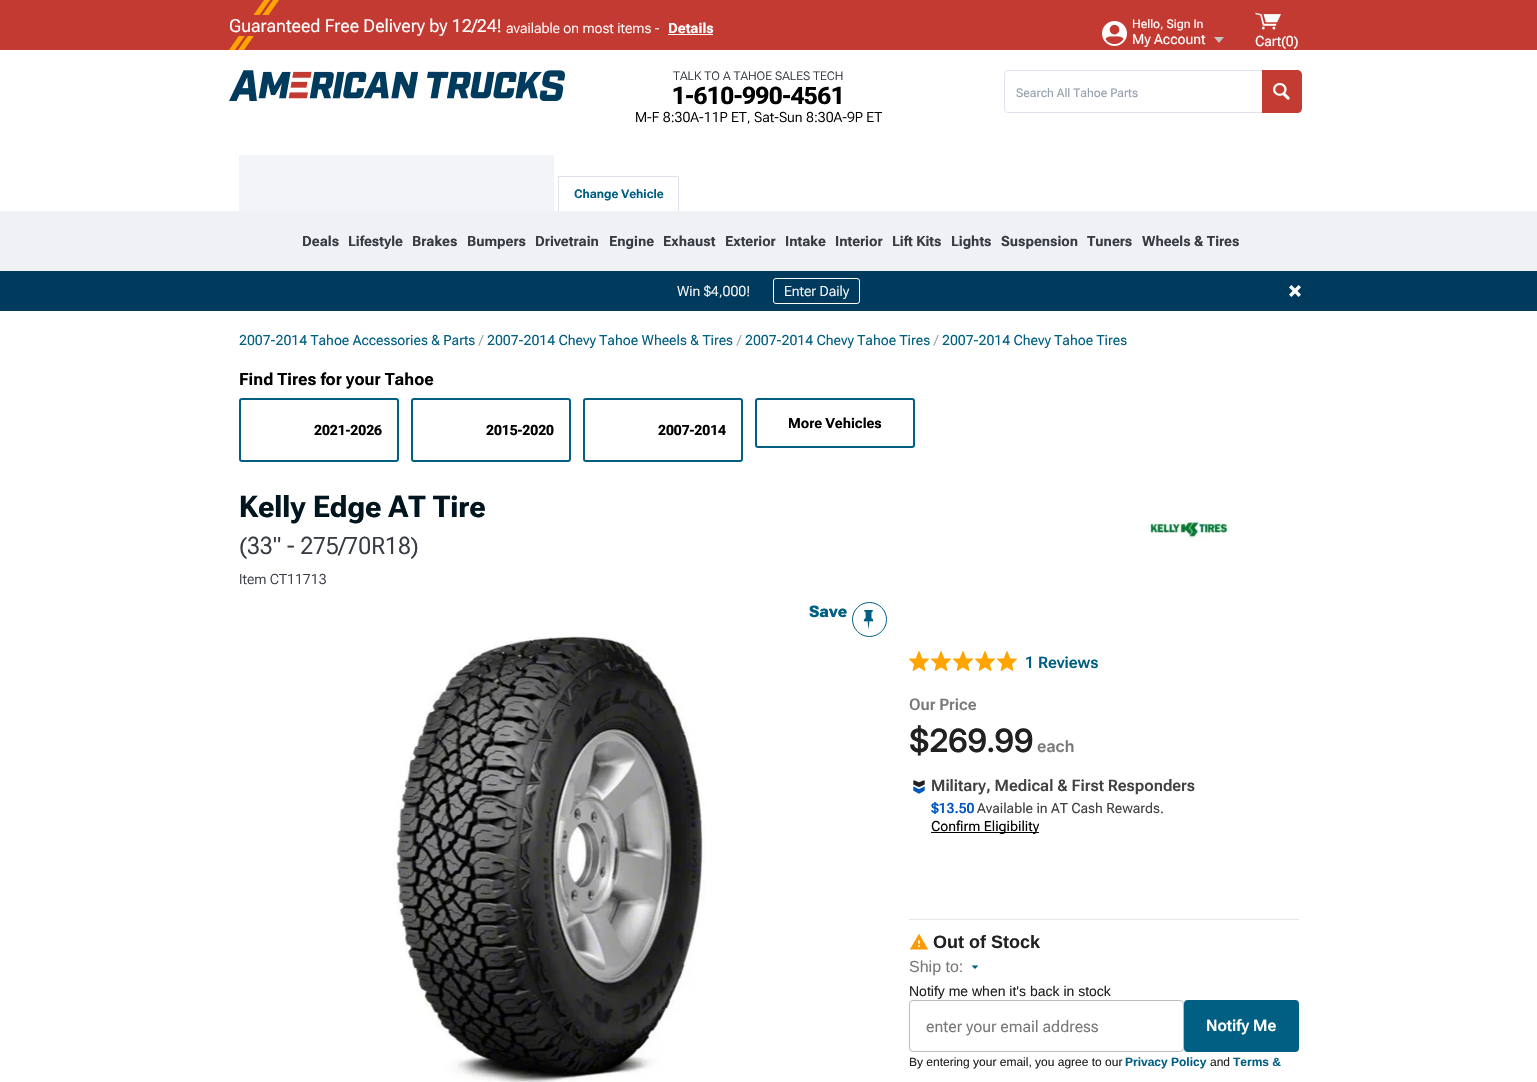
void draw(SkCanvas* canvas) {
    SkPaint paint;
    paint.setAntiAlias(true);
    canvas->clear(0xFFFFFFFF);
    paint.setColor(0xFFC33A32);
    canvas->drawRect(SkRect::MakeXYWH(0, 0, 1537, 50), paint);
    paint.setColor(0xFFFFA400);
    canvas->drawPath(SkPathBuilder().moveTo(270, 0).lineTo(235, 50).lineTo(229, 50).lineTo(264, 0).close().detach(), paint);
    canvas->drawPath(SkPathBuilder().moveTo(279, 0).lineTo(244, 50).lineTo(238, 50).lineTo(273, 0).close().detach(), paint);
    paint.setColor(0xFFC33A32);
    canvas->drawRect(SkRect::MakeXYWH(238, 15, 31, 21), paint);
    SkFont font1(fontMgr->matchFamilyStyle("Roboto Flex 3", SkFontStyle::Normal()), 18);
    font1.setSubpixel(true);
    paint.setColor(0xFFFFFFFF);
    canvas->drawString("Guaranteed Free Delivery by 12/24!", 229, 32, font1, paint);
    SkFont font2(fontMgr->matchFamilyStyle("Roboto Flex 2", SkFontStyle(300, SkFontStyle::kNormal_Width, SkFontStyle::kUpright_Slant)), 14);
    font2.setSubpixel(true);
    canvas->drawString("available on most items -", 506, 33, font2, paint);
    SkFont font3(fontMgr->matchFamilyStyle("Roboto Flex 2", SkFontStyle::Bold()), 14);
    font3.setSubpixel(true);
    canvas->drawString("Details", 668, 33, font3, paint);
    canvas->drawRect(SkRect::MakeXYWH(668, 34, 45, 1), paint);
    canvas->drawImageRect(SkImages::DeferredFromEncodedData(SkData::MakeFromFileName("img1.png")), SkRect::MakeXYWH(1102, 21, 25, 25), SkSamplingOptions());
    SkFont font4(fontMgr->matchFamilyStyle("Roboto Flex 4", SkFontStyle::Normal()), 12);
    font4.setSubpixel(true);
    canvas->drawString("Hello, Sign In", 1132, 28, font4, paint);
    SkFont font5(fontMgr->matchFamilyStyle("Roboto Flex 2", SkFontStyle::Normal()), 14);
    font5.setSubpixel(true);
    canvas->drawString("My Account", 1132, 44, font5, paint);
    paint.setColor(0xFFC4C4C4);
    canvas->drawPath(SkPathBuilder().moveTo(1219, 43).lineTo(1214, 37).lineTo(1224, 37).close().detach(), paint);
    canvas->drawImageRect(SkImages::DeferredFromEncodedData(SkData::MakeFromFileName("img2.png")), SkRect::MakeXYWH(1255, 12, 26, 18), SkSamplingOptions());
    paint.setColor(0xFFFFFFFF);
    canvas->drawString("Cart(0)", 1255, 46, font5, paint);
    canvas->drawImageRect(SkImages::DeferredFromEncodedData(SkData::MakeFromFileName("img3.png")), SkRect::MakeXYWH(229, 70, 336, 31), SkSamplingOptions());
    SkFont font6(fontMgr->matchFamilyStyle("Roboto Flex", SkFontStyle(300, SkFontStyle::kNormal_Width, SkFontStyle::kUpright_Slant)), 12);
    font6.setSubpixel(true);
    paint.setColor(0xFF373C43);
    canvas->drawString("TALK TO A TAHOE SALES TECH", 673, 80, font6, paint);
    SkFont font7(fontMgr->matchFamilyStyle("Roboto Flex", SkFontStyle::Bold()), 24);
    font7.setSubpixel(true);
    paint.setColor(0xFF000000);
    canvas->drawString("1-610-990-4561", 672, 104, font7, paint);
    canvas->drawString("M-F 8:30A-11P ET, Sat-Sun 8:30A-9P ET", 635, 122, font2, paint);
    paint.setStyle(SkPaint::kStroke_Style);
    paint.setStrokeWidth(1);
    paint.setColor(0xFFDFE3EB);
    canvas->drawRoundRect(SkRect::MakeXYWH(1004.5f, 70.5f, 294, 42), 3.5f, 3.5f, paint);
    paint.setStyle(SkPaint::kFill_Style);
    paint.setColor(0xFF95A1AE);
    canvas->drawString("Search All Tahoe Parts", 1016, 97, font4, paint);
    paint.setColor(0xFFC33B31);
    canvas->drawPath(SkPathBuilder().moveTo(1262, 70).lineTo(1297, 70).cubicTo(1300, 70, 1302, 72, 1302, 75).lineTo(1302, 108).cubicTo(1302, 111, 1300, 113, 1297, 113).lineTo(1262, 113).close().detach(), paint);
    canvas->drawImageRect(SkImages::DeferredFromEncodedData(SkData::MakeFromFileName("img4.png")), SkRect::MakeXYWH(1273, 83, 17, 17), SkSamplingOptions());
    paint.setColor(0xFFF2F4F7);
    canvas->drawRect(SkRect::MakeXYWH(239, 155, 315, 56), paint);
    paint.setColor(0xFFDFE3EB);
    canvas->drawRect(SkRect::MakeXYWH(558, 176, 121, 1), paint);
    canvas->drawRect(SkRect::MakeXYWH(678, 176, 1, 36), paint);
    canvas->drawRect(SkRect::MakeXYWH(558, 176, 1, 36), paint);
    SkFont font8(fontMgr->matchFamilyStyle("Roboto Flex 4", SkFontStyle::Bold()), 12);
    font8.setSubpixel(true);
    paint.setColor(0xFF005F83);
    canvas->drawString("Change Vehicle", 574, 198, font8, paint);
    paint.setColor(0xFFEFF1F5);
    canvas->drawRect(SkRect::MakeXYWH(0, 211, 1537, 60), paint);
    paint.setColor(0xFF373C43);
    canvas->drawString("Deals", 302, 246, font3, paint);
    canvas->drawString("Lifestyle", 348, 246, font3, paint);
    canvas->drawString("Brakes", 412, 246, font3, paint);
    canvas->drawString("Bumpers", 467, 246, font3, paint);
    canvas->drawString("Drivetrain", 535, 246, font3, paint);
    canvas->drawString("Engine", 609, 246, font3, paint);
    canvas->drawString("Exhaust", 663, 246, font3, paint);
    canvas->drawString("Exterior", 725, 246, font3, paint);
    canvas->drawString("Intake", 785, 246, font3, paint);
    canvas->drawString("Interior", 835, 246, font3, paint);
    canvas->drawString("Lift Kits", 892, 246, font3, paint);
    canvas->drawString("Lights", 951, 246, font3, paint);
    canvas->drawString("Suspension", 1001, 246, font3, paint);
    canvas->drawString("Tuners", 1087, 246, font3, paint);
    canvas->drawString("Wheels & Tires", 1142, 246, font3, paint);
    paint.setColor(0xFF003A5D);
    canvas->drawRect(SkRect::MakeXYWH(0, 271, 1537, 40), paint);
    paint.setColor(0xFFFFFFFF);
    canvas->drawString("Win $4,000!", 677, 296, font2, paint);
    paint.setStyle(SkPaint::kStroke_Style);
    canvas->drawRoundRect(SkRect::MakeXYWH(773.5f, 278.5f, 86, 25), 2.5f, 2.5f, paint);
    paint.setStyle(SkPaint::kFill_Style);
    canvas->drawString("Enter Daily", 784, 296, font2, paint);
    canvas->drawImageRect(SkImages::DeferredFromEncodedData(SkData::MakeFromFileName("img5.png")), SkRect::MakeXYWH(1289, 285, 12, 12), SkSamplingOptions());
    paint.setColor(0xFF005F83);
    canvas->drawString("2007-2014 Tahoe Accessories & Parts", 239, 345, font5, paint);
    paint.setColor(0xFF95A1AE);
    canvas->drawString("/", 479, 345, font2, paint);
    paint.setColor(0xFF005F83);
    canvas->drawString("2007-2014 Chevy Tahoe Wheels & Tires", 487, 345, font5, paint);
    paint.setColor(0xFF95A1AE);
    canvas->drawString("/", 737, 345, font2, paint);
    paint.setColor(0xFF005F83);
    canvas->drawString("2007-2014 Chevy Tahoe Tires", 745, 345, font5, paint);
    paint.setColor(0xFF95A1AE);
    canvas->drawString("/", 934, 345, font2, paint);
    paint.setColor(0xFF005F83);
    canvas->drawString("2007-2014 Chevy Tahoe Tires", 942, 345, font5, paint);
    SkFont font9(fontMgr->matchFamilyStyle("Roboto Flex 2", SkFontStyle::Bold()), 16.75f);
    font9.setSubpixel(true);
    paint.setColor(0xFF000000);
    canvas->drawString("Find Tires for your Tahoe", 239, 385, font9, paint);
    paint.setStyle(SkPaint::kStroke_Style);
    paint.setStrokeWidth(2);
    paint.setColor(0xFF005F83);
    canvas->drawRoundRect(SkRect::MakeXYWH(240, 399, 158, 62), 2, 2, paint);
    paint.setStyle(SkPaint::kFill_Style);
    paint.setColor(0xFF000000);
    canvas->drawString("2021-2026", 314, 435, font3, paint);
    paint.setStyle(SkPaint::kStroke_Style);
    paint.setColor(0xFF005F83);
    canvas->drawRoundRect(SkRect::MakeXYWH(412, 399, 158, 62), 2, 2, paint);
    paint.setStyle(SkPaint::kFill_Style);
    paint.setColor(0xFF000000);
    canvas->drawString("2015-2020", 486, 435, font3, paint);
    paint.setStyle(SkPaint::kStroke_Style);
    paint.setColor(0xFF005F83);
    canvas->drawRoundRect(SkRect::MakeXYWH(584, 399, 158, 62), 2, 2, paint);
    paint.setStyle(SkPaint::kFill_Style);
    paint.setColor(0xFF000000);
    canvas->drawString("2007-2014", 658, 435, font3, paint);
    paint.setStyle(SkPaint::kStroke_Style);
    paint.setColor(0xFF005F83);
    canvas->drawRoundRect(SkRect::MakeXYWH(756, 399, 158, 48), 2, 2, paint);
    paint.setStyle(SkPaint::kFill_Style);
    paint.setColor(0xFF000000);
    canvas->drawString("More Vehicles", 788, 428, font3, paint);
    SkFont font10(fontMgr->matchFamilyStyle("Roboto Flex 3", SkFontStyle::Bold()), 30);
    font10.setSubpixel(true);
    paint.setColor(0xFF00151D);
    canvas->drawString("Kelly Edge AT Tire", 239, 517, font10, paint);
    SkFont font11(fontMgr->matchFamilyStyle("Roboto Flex", SkFontStyle::Normal()), 24);
    font11.setSubpixel(true);
    paint.setColor(0xFF373C43);
    canvas->drawString("(33\" - 275/70R18)", 239, 554, font11, paint);
    canvas->drawString("Item CT11713", 239, 584, font2, paint);
    canvas->drawImageRect(SkImages::DeferredFromEncodedData(SkData::MakeFromFileName("img6.png")), SkRect::MakeXYWH(1148, 518, 80, 22), SkSamplingOptions());
    SkFont font12(fontMgr->matchFamilyStyle("Roboto Flex", SkFontStyle(900, SkFontStyle::kNormal_Width, SkFontStyle::kUpright_Slant)), 16);
    font12.setSubpixel(true);
    paint.setColor(0xFF005F83);
    canvas->drawString("Save", 809, 617, font12, paint);
    canvas->drawImageRect(SkImages::DeferredFromEncodedData(SkData::MakeFromFileName("img7.png")), SkRect::MakeXYWH(863, 610, 11, 20), SkSamplingOptions());
    paint.setStyle(SkPaint::kStroke_Style);
    paint.setStrokeWidth(1);
    canvas->drawCircle(869.5f, 619.5f, 17, paint);
    canvas->drawImageRect(SkImages::DeferredFromEncodedData(SkData::MakeFromFileName("img8.png")), SkRect::MakeXYWH(393, 636, 313, 446), SkSamplingOptions());
    canvas->drawImageRect(SkImages::DeferredFromEncodedData(SkData::MakeFromFileName("img9.png")), SkRect::MakeXYWH(909, 651, 108, 20), SkSamplingOptions());
    SkFont font13(fontMgr->matchFamilyStyle("Roboto Flex", SkFontStyle(600, SkFontStyle::kNormal_Width, SkFontStyle::kUpright_Slant)), 16);
    font13.setSubpixel(true);
    paint.setStyle(SkPaint::kFill_Style);
    canvas->drawString("1 Reviews", 1025, 668, font13, paint);
    paint.setColor(0xFF797979);
    canvas->drawString("Our Price", 909, 710, font13, paint);
    SkFont font14(fontMgr->matchFamilyStyle("Inter", SkFontStyle(600, SkFontStyle::kNormal_Width, SkFontStyle::kUpright_Slant)), 32);
    font14.setSubpixel(true);
    paint.setColor(0xFF212121);
    canvas->drawString("$269.99", 909, 752, font14, paint);
    SkFont font15(fontMgr->matchFamilyStyle("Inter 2", SkFontStyle(600, SkFontStyle::kNormal_Width, SkFontStyle::kUpright_Slant)), 16);
    font15.setSubpixel(true);
    paint.setColor(0xFF797979);
    canvas->drawString("each", 1037, 752, font15, paint);
    canvas->drawImageRect(SkImages::DeferredFromEncodedData(SkData::MakeFromFileName("img10.png")), SkRect::MakeXYWH(913, 780, 12, 14), SkSamplingOptions());
    paint.setColor(0xFF414042);
    canvas->drawString("Military, Medical & First Responders", 931, 791, font13, paint);
    SkFont font16(fontMgr->matchFamilyStyle("Roboto Flex 2", SkFontStyle(600, SkFontStyle::kNormal_Width, SkFontStyle::kUpright_Slant)), 14);
    font16.setSubpixel(true);
    paint.setColor(0xFF0057C2);
    canvas->drawString("$13.50", 931, 813, font16, paint);
    paint.setColor(0xFF414042);
    canvas->drawString("Available in AT Cash Rewards.", 977, 813, font5, paint);
    paint.setColor(0xFF000000);
    canvas->drawRect(SkRect::MakeXYWH(931, 832, 108, 1), paint);
    canvas->drawString("Confirm Eligibility", 931, 831, font5, paint);
    paint.setColor(0xFFE8E8E8);
    canvas->drawRect(SkRect::MakeXYWH(909, 919, 390, 1), paint);
    canvas->drawImageRect(SkImages::DeferredFromEncodedData(SkData::MakeFromFileName("img11.png")), SkRect::MakeXYWH(909, 933, 20, 17), SkSamplingOptions());
    SkFont font17(fontMgr->matchFamilyStyle("Liberation Sans", SkFontStyle::Bold()), 18);
    font17.setSubpixel(true);
    paint.setColor(0xFF212121);
    canvas->drawString("Out of Stock", 933, 948, font17, paint);
    SkFont font18(fontMgr->matchFamilyStyle("Liberation Sans", SkFontStyle::Normal()), 16);
    font18.setSubpixel(true);
    paint.setColor(0xFF797979);
    canvas->drawString("Ship to:", 909, 972, font18, paint);
    paint.setColor(0xFF005F83);
    canvas->drawPath(SkPathBuilder().moveTo(971.5f, 965.5f).lineTo(975, 969).lineTo(978.5f, 965.5f).close().detach(), paint);
    SkFont font19(fontMgr->matchFamilyStyle("Liberation Sans", SkFontStyle::Normal()), 14);
    font19.setSubpixel(true);
    paint.setColor(0xFF212121);
    canvas->drawString("Notify me when it's back in stock", 909, 996, font19, paint);
    paint.setStyle(SkPaint::kStroke_Style);
    paint.setColor(0xFFBCBCBC);
    canvas->drawRoundRect(SkRect::MakeXYWH(909.5f, 1000.5f, 274, 51), 3.5f, 3.5f, paint);
    SkFont font20(fontMgr->matchFamilyStyle("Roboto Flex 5", SkFontStyle::Normal()), 16);
    font20.setSubpixel(true);
    paint.setStyle(SkPaint::kFill_Style);
    paint.setColor(0xFF797979);
    canvas->drawString("enter your email address", 926, 1032, font20, paint);
    paint.setColor(0xFF005F83);
    canvas->drawRoundRect(SkRect::MakeXYWH(1184, 1000, 115, 52), 4, 4, paint);
    paint.setColor(0xFFFFFFFF);
    canvas->drawString("Notify Me", 1206, 1031, font13, paint);
    SkFont font21(fontMgr->matchFamilyStyle("Liberation Sans", SkFontStyle::Normal()), 12);
    font21.setSubpixel(true);
    paint.setColor(0xFF212121);
    canvas->drawString("By entering your email, you agree to our", 909, 1066, font21, paint);
    SkFont font22(fontMgr->matchFamilyStyle("Liberation Sans", SkFontStyle::Bold()), 12);
    font22.setSubpixel(true);
    paint.setColor(0xFF005F83);
    canvas->drawString("Privacy Policy", 1125, 1066, font22, paint);
    paint.setColor(0xFF212121);
    canvas->drawString("and", 1210, 1066, font21, paint);
    paint.setColor(0xFF005F83);
    canvas->drawString("Terms &", 1233, 1066, font22, paint);
}
